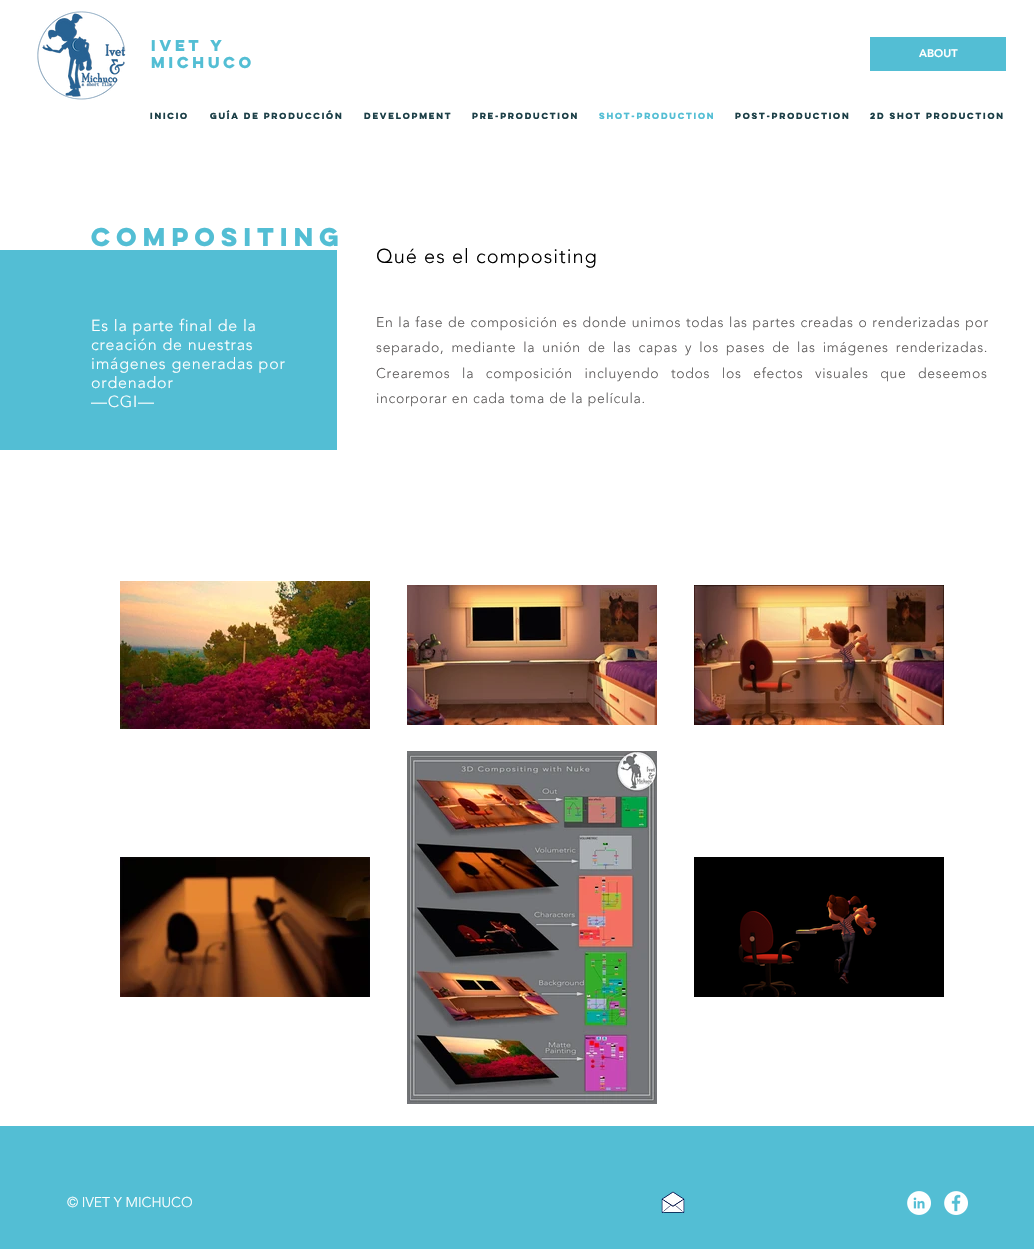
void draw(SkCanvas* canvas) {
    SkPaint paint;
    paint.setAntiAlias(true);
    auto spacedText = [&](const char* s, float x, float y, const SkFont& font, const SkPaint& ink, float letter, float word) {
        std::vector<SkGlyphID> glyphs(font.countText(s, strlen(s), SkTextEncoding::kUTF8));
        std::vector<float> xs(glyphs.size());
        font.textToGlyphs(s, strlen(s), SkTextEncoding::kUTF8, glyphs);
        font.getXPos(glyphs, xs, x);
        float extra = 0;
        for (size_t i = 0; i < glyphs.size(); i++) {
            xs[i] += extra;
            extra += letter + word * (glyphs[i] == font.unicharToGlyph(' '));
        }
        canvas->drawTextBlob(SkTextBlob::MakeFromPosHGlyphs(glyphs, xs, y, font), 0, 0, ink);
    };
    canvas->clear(0xFFFFFFFF);
    canvas->drawImageRect(SkImages::DeferredFromEncodedData(SkData::MakeFromFileName("img1.png")), SkRect::MakeXYWH(37, 11, 89, 89), SkSamplingOptions());
    SkFont font1(fontMgr->matchFamilyStyle("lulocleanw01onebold", SkFontStyle::Bold()), 14);
    font1.setSubpixel(true);
    paint.setColor(0xFF53BED4);
    spacedText("ivet y", 151, 51, font1, paint, 0.7f, 0);
    spacedText("michuco", 151, 68, font1, paint, 0.7f, 0);
    canvas->drawRect(SkRect::MakeXYWH(870, 37, 136, 34), paint);
    SkFont font2(fontMgr->matchFamilyStyle("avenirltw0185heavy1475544", SkFontStyle(900, SkFontStyle::kNormal_Width, SkFontStyle::kUpright_Slant)), 11);
    font2.setSubpixel(true);
    paint.setColor(0xFFFFFFFF);
    canvas->drawString("ABOUT", 919, 57, font2, paint);
    SkFont font3(fontMgr->matchFamilyStyle("lulocleanw01onebold", SkFontStyle::Bold()), 8);
    font3.setSubpixel(true);
    paint.setColor(0xFF1C3F47);
    canvas->drawString("INICIO", 150, 119, font3, paint);
    canvas->drawString("GUÍA DE PRODUCCIÓN", 210, 119, font3, paint);
    canvas->drawString("DEVELOPMENT", 364, 119, font3, paint);
    canvas->drawString("PRE-PRODUCTION", 472, 119, font3, paint);
    paint.setColor(0xFF53BED4);
    canvas->drawString("SHOT-PRODUCTION", 599, 119, font3, paint);
    paint.setColor(0xFF1C3F47);
    canvas->drawString("POST-PRODUCTION", 735, 119, font3, paint);
    canvas->drawString("2D SHOT PRODUCTION", 870, 119, font3, paint);
    SkFont font4(fontMgr->matchFamilyStyle("lulocleanw01onebold", SkFontStyle::Bold()), 23);
    font4.setSubpixel(true);
    paint.setColor(0xFF53BED4);
    spacedText("COMPOSITING", 91, 246, font4, paint, 1.1f, 0);
    SkFont font5(fontMgr->matchFamilyStyle("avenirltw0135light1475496", SkFontStyle(300, SkFontStyle::kNormal_Width, SkFontStyle::kUpright_Slant)), 20);
    font5.setSubpixel(true);
    paint.setColor(0xFF000000);
    spacedText("Qué es el compositing", 376, 263, font5, paint, 1, 0);
    paint.setColor(0xFF53BED4);
    canvas->drawRect(SkRect::MakeXYWH(0, 250, 337, 200), paint);
    SkFont font6(fontMgr->matchFamilyStyle("avenirltw0135light1475496", SkFontStyle(300, SkFontStyle::kNormal_Width, SkFontStyle::kUpright_Slant)), 16);
    font6.setSubpixel(true);
    paint.setColor(0xFFFFFFFF);
    spacedText("Es la parte final de la", 91, 331, font6, paint, 0.8f, 0);
    spacedText("creación de nuestras", 91, 350, font6, paint, 0.8f, 0);
    spacedText("imágenes generadas por", 91, 369, font6, paint, 0.8f, 0);
    spacedText("ordenador", 91, 388, font6, paint, 0.8f, 0);
    spacedText("—CGI—", 91, 407, font6, paint, 0.8f, 0);
    SkFont font7(fontMgr->matchFamilyStyle("avenirltw0135light1475496", SkFontStyle(300, SkFontStyle::kNormal_Width, SkFontStyle::kUpright_Slant)), 14);
    font7.setSubpixel(true);
    paint.setColor(0xFF605E5E);
    spacedText("En la fase de composición es donde unimos todas las partes creadas o renderizadas por", 376, 327, font7, paint, 0.7f, 0.5f);
    spacedText("separado, mediante la unión de las capas y los pases de las imágenes renderizadas.", 376, 352, font7, paint, 0.7f, 2.75f);
    spacedText("Crearemos la composición incluyendo todos los efectos visuales que deseemos", 376, 378, font7, paint, 0.7f, 7.25f);
    spacedText("incorporar en cada toma de la película.", 376, 403, font7, paint, 0.7f, 0);
    canvas->drawImageRect(SkImages::DeferredFromEncodedData(SkData::MakeFromFileName("img2.png")), SkRect::MakeXYWH(120, 581, 250, 148), SkSamplingOptions());
    canvas->drawImageRect(SkImages::DeferredFromEncodedData(SkData::MakeFromFileName("img3.png")), SkRect::MakeXYWH(407, 585, 250, 140), SkSamplingOptions());
    canvas->drawImageRect(SkImages::DeferredFromEncodedData(SkData::MakeFromFileName("img4.png")), SkRect::MakeXYWH(694, 585, 250, 140), SkSamplingOptions());
    canvas->drawImageRect(SkImages::DeferredFromEncodedData(SkData::MakeFromFileName("img5.png")), SkRect::MakeXYWH(120, 857, 250, 140), SkSamplingOptions());
    canvas->drawImageRect(SkImages::DeferredFromEncodedData(SkData::MakeFromFileName("img6.png")), SkRect::MakeXYWH(407, 751, 250, 353), SkSamplingOptions());
    canvas->drawImageRect(SkImages::DeferredFromEncodedData(SkData::MakeFromFileName("img7.png")), SkRect::MakeXYWH(694, 857, 250, 140), SkSamplingOptions());
    paint.setColor(0xFF53BED4);
    canvas->drawRect(SkRect::MakeXYWH(0, 1126, 1034, 123), paint);
    paint.setColor(0xFFFFFFFF);
    canvas->drawString("© IVET Y MICHUCO", 67, 1207, font7, paint);
    canvas->drawImageRect(SkImages::DeferredFromEncodedData(SkData::MakeFromFileName("img8.png")), SkRect::MakeXYWH(661, 1191, 24, 22), SkSamplingOptions());
    canvas->drawImageRect(SkImages::DeferredFromEncodedData(SkData::MakeFromFileName("img9.png")), SkRect::MakeXYWH(907, 1191, 24, 24), SkSamplingOptions());
    canvas->drawImageRect(SkImages::DeferredFromEncodedData(SkData::MakeFromFileName("img10.png")), SkRect::MakeXYWH(944, 1191, 24, 24), SkSamplingOptions());
}
